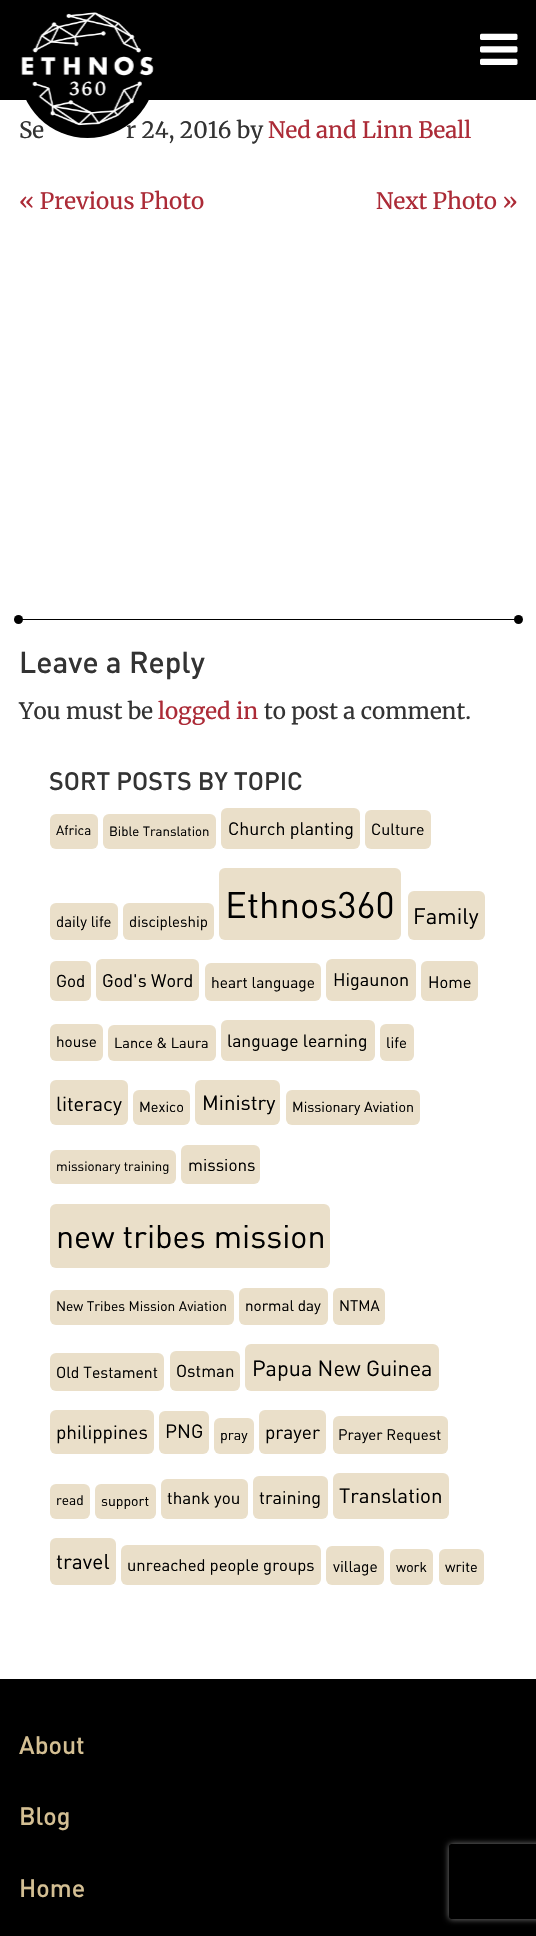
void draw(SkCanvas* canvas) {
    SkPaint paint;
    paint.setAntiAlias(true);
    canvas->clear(0xFFFFFFFF);
    paint.setColor(0xFF000000);
    canvas->drawRect(SkRect::MakeXYWH(0, 0, 536, 100), paint);
    SkFont font1(fontMgr->matchFamilyStyle("Merriweather", SkFontStyle::Normal()), 22.5f);
    font1.setSubpixel(true);
    paint.setColor(0xFF333333);
    canvas->drawString("Se", 19, 138, font1, paint);
    canvas->drawString("r 24, 2016 by", 126, 138, font1, paint);
    paint.setColor(0xFF000000);
    canvas->drawRoundRect(SkRect::MakeXYWH(19, 0, 137, 138), 68.5f, 68.5f, paint);
    canvas->drawImageRect(SkImages::DeferredFromEncodedData(SkData::MakeFromFileName("img1.png")), SkRect::MakeXYWH(21, 12, 133, 114), SkSamplingOptions());
    canvas->drawImageRect(SkImages::DeferredFromEncodedData(SkData::MakeFromFileName("img2.png")), SkRect::MakeXYWH(480, 33, 38, 32), SkSamplingOptions());
    paint.setColor(0xFFAC2B37);
    canvas->drawString("Ned and Linn Beall", 268, 138, font1, paint);
    canvas->drawString("« Previous Photo", 19, 209, font1, paint);
    canvas->drawString("Next Photo »", 376, 209, font1, paint);
    paint.setColor(0xFF000000);
    canvas->drawRect(SkRect::MakeXYWH(19, 619, 499, 1), paint);
    canvas->drawCircle(18.5f, 619.5f, 4.5f, paint);
    canvas->drawCircle(518.5f, 619.5f, 4.5f, paint);
    SkFont font2(fontMgr->matchFamilyStyle("DIN", SkFontStyle(500, SkFontStyle::kNormal_Width, SkFontStyle::kUpright_Slant)), 30);
    font2.setSubpixel(true);
    paint.setColor(0xFF333333);
    canvas->drawString("Leave a Reply", 19, 673, font2, paint);
    canvas->drawString("You must be", 19, 719, font1, paint);
    paint.setColor(0xFFAC2B37);
    canvas->drawString("logged in", 158, 719, font1, paint);
    paint.setColor(0xFF333333);
    canvas->drawString("to post a comment.", 264, 719, font1, paint);
    SkFont font3(fontMgr->matchFamilyStyle("DIN", SkFontStyle(500, SkFontStyle::kNormal_Width, SkFontStyle::kUpright_Slant)), 25);
    font3.setSubpixel(true);
    canvas->drawString("SORT POSTS BY TOPIC", 49, 790, font3, paint);
    paint.setColor(0xFFEADFC9);
    canvas->drawRoundRect(SkRect::MakeXYWH(50, 814, 48, 35), 6, 6, paint);
    SkFont font4(fontMgr->matchFamilyStyle("DIN", SkFontStyle::Normal()), 13.5f);
    font4.setSubpixel(true);
    paint.setColor(0xFF000000);
    canvas->drawString("Africa", 56, 835, font4, paint);
    paint.setColor(0xFFEADFC9);
    canvas->drawRoundRect(SkRect::MakeXYWH(103, 814, 113, 35), 6, 6, paint);
    SkFont font5(fontMgr->matchFamilyStyle("DIN", SkFontStyle::Normal()), 13.25f);
    font5.setSubpixel(true);
    paint.setColor(0xFF000000);
    canvas->drawString("Bible Translation", 109, 836, font5, paint);
    paint.setColor(0xFFEADFC9);
    canvas->drawRoundRect(SkRect::MakeXYWH(221, 808, 139, 41), 6, 6, paint);
    SkFont font6(fontMgr->matchFamilyStyle("DIN", SkFontStyle::Normal()), 17.75f);
    font6.setSubpixel(true);
    paint.setColor(0xFF000000);
    canvas->drawString("Church planting", 228, 835, font6, paint);
    paint.setColor(0xFFEADFC9);
    canvas->drawRoundRect(SkRect::MakeXYWH(365, 810, 66, 39), 6, 6, paint);
    SkFont font7(fontMgr->matchFamilyStyle("DIN", SkFontStyle::Normal()), 16);
    font7.setSubpixel(true);
    paint.setColor(0xFF000000);
    canvas->drawString("Culture", 371, 835, font7, paint);
    paint.setColor(0xFFEADFC9);
    canvas->drawRoundRect(SkRect::MakeXYWH(50, 903, 68, 37), 6, 6, paint);
    SkFont font8(fontMgr->matchFamilyStyle("DIN", SkFontStyle::Normal()), 15);
    font8.setSubpixel(true);
    paint.setColor(0xFF000000);
    canvas->drawString("daily life", 56, 927, font8, paint);
    paint.setColor(0xFFEADFC9);
    canvas->drawRoundRect(SkRect::MakeXYWH(123, 903, 91, 37), 6, 6, paint);
    paint.setColor(0xFF000000);
    canvas->drawString("discipleship", 129, 927, font8, paint);
    paint.setColor(0xFFEADFC9);
    canvas->drawRoundRect(SkRect::MakeXYWH(219, 868, 182, 72), 6, 6, paint);
    SkFont font9(fontMgr->matchFamilyStyle("DIN", SkFontStyle::Normal()), 36.5f);
    font9.setSubpixel(true);
    paint.setColor(0xFF000000);
    canvas->drawString("Ethnos360", 225, 918, font9, paint);
    paint.setColor(0xFFEADFC9);
    canvas->drawRoundRect(SkRect::MakeXYWH(408, 891, 77, 49), 6, 6, paint);
    SkFont font10(fontMgr->matchFamilyStyle("DIN", SkFontStyle::Normal()), 22);
    font10.setSubpixel(true);
    paint.setColor(0xFF000000);
    canvas->drawString("Family", 413, 924, font10, paint);
    paint.setColor(0xFFEADFC9);
    canvas->drawRoundRect(SkRect::MakeXYWH(50, 961, 41, 40), 6, 6, paint);
    SkFont font11(fontMgr->matchFamilyStyle("DIN", SkFontStyle::Normal()), 17);
    font11.setSubpixel(true);
    paint.setColor(0xFF000000);
    canvas->drawString("God", 56, 987, font11, paint);
    paint.setColor(0xFFEADFC9);
    canvas->drawRoundRect(SkRect::MakeXYWH(96, 959, 103, 42), 6, 6, paint);
    SkFont font12(fontMgr->matchFamilyStyle("DIN", SkFontStyle::Normal()), 18);
    font12.setSubpixel(true);
    paint.setColor(0xFF000000);
    canvas->drawString("God's Word", 102, 987, font12, paint);
    paint.setColor(0xFFEADFC9);
    canvas->drawRoundRect(SkRect::MakeXYWH(205, 963, 116, 38), 6, 6, paint);
    SkFont font13(fontMgr->matchFamilyStyle("DIN", SkFontStyle::Normal()), 15.5f);
    font13.setSubpixel(true);
    paint.setColor(0xFF000000);
    canvas->drawString("heart language", 211, 988, font13, paint);
    paint.setColor(0xFFEADFC9);
    canvas->drawRoundRect(SkRect::MakeXYWH(326, 959, 90, 42), 6, 6, paint);
    paint.setColor(0xFF000000);
    canvas->drawString("Higaunon", 333, 986, font12, paint);
    paint.setColor(0xFFEADFC9);
    canvas->drawRoundRect(SkRect::MakeXYWH(421, 961, 57, 40), 6, 6, paint);
    SkFont font14(fontMgr->matchFamilyStyle("DIN", SkFontStyle::Normal()), 16.5f);
    font14.setSubpixel(true);
    paint.setColor(0xFF000000);
    canvas->drawString("Home", 428, 988, font14, paint);
    paint.setColor(0xFFEADFC9);
    canvas->drawRoundRect(SkRect::MakeXYWH(50, 1024, 53, 37), 6, 6, paint);
    SkFont font15(fontMgr->matchFamilyStyle("DIN", SkFontStyle::Normal()), 15.25f);
    font15.setSubpixel(true);
    paint.setColor(0xFF000000);
    canvas->drawString("house", 56, 1047, font15, paint);
    paint.setColor(0xFFEADFC9);
    canvas->drawRoundRect(SkRect::MakeXYWH(108, 1025, 108, 36), 6, 6, paint);
    SkFont font16(fontMgr->matchFamilyStyle("DIN", SkFontStyle::Normal()), 14.5f);
    font16.setSubpixel(true);
    paint.setColor(0xFF000000);
    canvas->drawString("Lance & Laura", 114, 1048, font16, paint);
    paint.setColor(0xFFEADFC9);
    canvas->drawRoundRect(SkRect::MakeXYWH(221, 1020, 154, 41), 6, 6, paint);
    SkFont font17(fontMgr->matchFamilyStyle("DIN", SkFontStyle::Normal()), 17.5f);
    font17.setSubpixel(true);
    paint.setColor(0xFF000000);
    canvas->drawString("language learning", 227, 1047, font17, paint);
    paint.setColor(0xFFEADFC9);
    canvas->drawRoundRect(SkRect::MakeXYWH(380, 1024, 34, 37), 6, 6, paint);
    paint.setColor(0xFF000000);
    canvas->drawString("life", 386, 1048, font8, paint);
    paint.setColor(0xFFEADFC9);
    canvas->drawRoundRect(SkRect::MakeXYWH(50, 1080, 78, 45), 6, 6, paint);
    SkFont font18(fontMgr->matchFamilyStyle("DIN", SkFontStyle::Normal()), 20);
    font18.setSubpixel(true);
    paint.setColor(0xFF000000);
    canvas->drawString("literacy", 56, 1111, font18, paint);
    paint.setColor(0xFFEADFC9);
    canvas->drawRoundRect(SkRect::MakeXYWH(133, 1090, 57, 35), 6, 6, paint);
    paint.setColor(0xFF000000);
    canvas->drawString("Mexico", 139, 1112, font16, paint);
    paint.setColor(0xFFEADFC9);
    canvas->drawRoundRect(SkRect::MakeXYWH(195, 1080, 85, 45), 6, 6, paint);
    SkFont font19(fontMgr->matchFamilyStyle("DIN", SkFontStyle::Normal()), 20.5f);
    font19.setSubpixel(true);
    paint.setColor(0xFF000000);
    canvas->drawString("Ministry", 202, 1110, font19, paint);
    paint.setColor(0xFFEADFC9);
    canvas->drawRoundRect(SkRect::MakeXYWH(286, 1090, 134, 35), 6, 6, paint);
    SkFont font20(fontMgr->matchFamilyStyle("DIN", SkFontStyle::Normal()), 14.25f);
    font20.setSubpixel(true);
    paint.setColor(0xFF000000);
    canvas->drawString("Missionary Aviation", 292, 1112, font20, paint);
    paint.setColor(0xFFEADFC9);
    canvas->drawRoundRect(SkRect::MakeXYWH(50, 1150, 126, 34), 6, 6, paint);
    paint.setColor(0xFF000000);
    canvas->drawString("missionary training", 56, 1171, font5, paint);
    paint.setColor(0xFFEADFC9);
    canvas->drawRoundRect(SkRect::MakeXYWH(181, 1145, 79, 39), 6, 6, paint);
    paint.setColor(0xFF000000);
    canvas->drawString("missions", 188, 1171, font11, paint);
    paint.setColor(0xFFEADFC9);
    canvas->drawRoundRect(SkRect::MakeXYWH(50, 1204, 280, 64), 6, 6, paint);
    SkFont font21(fontMgr->matchFamilyStyle("DIN", SkFontStyle::Normal()), 32.25f);
    font21.setSubpixel(true);
    paint.setColor(0xFF000000);
    canvas->drawString("new tribes mission", 56, 1248, font21, paint);
    paint.setColor(0xFFEADFC9);
    canvas->drawRoundRect(SkRect::MakeXYWH(50, 1290, 184, 35), 6, 6, paint);
    SkFont font22(fontMgr->matchFamilyStyle("DIN", SkFontStyle::Normal()), 13.75f);
    font22.setSubpixel(true);
    paint.setColor(0xFF000000);
    canvas->drawString("New Tribes Mission Aviation", 56, 1311, font22, paint);
    paint.setColor(0xFFEADFC9);
    canvas->drawRoundRect(SkRect::MakeXYWH(239, 1288, 89, 37), 6, 6, paint);
    paint.setColor(0xFF000000);
    canvas->drawString("normal day", 245, 1311, font15, paint);
    paint.setColor(0xFFEADFC9);
    canvas->drawRoundRect(SkRect::MakeXYWH(333, 1288, 52, 37), 6, 6, paint);
    paint.setColor(0xFF000000);
    canvas->drawString("NTMA", 339, 1311, font8, paint);
    paint.setColor(0xFFEADFC9);
    canvas->drawRoundRect(SkRect::MakeXYWH(50, 1353, 114, 38), 6, 6, paint);
    SkFont font23(fontMgr->matchFamilyStyle("DIN", SkFontStyle::Normal()), 15.75f);
    font23.setSubpixel(true);
    paint.setColor(0xFF000000);
    canvas->drawString("Old Testament", 56, 1378, font23, paint);
    paint.setColor(0xFFEADFC9);
    canvas->drawRoundRect(SkRect::MakeXYWH(170, 1351, 70, 40), 6, 6, paint);
    paint.setColor(0xFF000000);
    canvas->drawString("Ostman", 176, 1377, font11, paint);
    paint.setColor(0xFFEADFC9);
    canvas->drawRoundRect(SkRect::MakeXYWH(245, 1344, 194, 47), 6, 6, paint);
    SkFont font24(fontMgr->matchFamilyStyle("DIN", SkFontStyle::Normal()), 21.6f);
    font24.setSubpixel(true);
    paint.setColor(0xFF000000);
    canvas->drawString("Papua New Guinea", 252, 1376, font24, paint);
    paint.setColor(0xFFEADFC9);
    canvas->drawRoundRect(SkRect::MakeXYWH(50, 1410, 104, 44), 6, 6, paint);
    SkFont font25(fontMgr->matchFamilyStyle("DIN", SkFontStyle::Normal()), 19);
    font25.setSubpixel(true);
    paint.setColor(0xFF000000);
    canvas->drawString("philippines", 56, 1439, font25, paint);
    paint.setColor(0xFFEADFC9);
    canvas->drawRoundRect(SkRect::MakeXYWH(159, 1411, 50, 43), 6, 6, paint);
    paint.setColor(0xFF000000);
    canvas->drawString("PNG", 165, 1438, font25, paint);
    paint.setColor(0xFFEADFC9);
    canvas->drawRoundRect(SkRect::MakeXYWH(214, 1418, 40, 36), 6, 6, paint);
    paint.setColor(0xFF000000);
    canvas->drawString("pray", 220, 1440, font20, paint);
    paint.setColor(0xFFEADFC9);
    canvas->drawRoundRect(SkRect::MakeXYWH(259, 1410, 67, 44), 6, 6, paint);
    paint.setColor(0xFF000000);
    canvas->drawString("prayer", 265, 1439, font25, paint);
    paint.setColor(0xFFEADFC9);
    canvas->drawRoundRect(SkRect::MakeXYWH(333, 1416, 115, 38), 6, 6, paint);
    paint.setColor(0xFF000000);
    canvas->drawString("Prayer Request", 338, 1440, font8, paint);
    paint.setColor(0xFFEADFC9);
    canvas->drawRoundRect(SkRect::MakeXYWH(50, 1484, 40, 35), 6, 6, paint);
    paint.setColor(0xFF000000);
    canvas->drawString("read", 56, 1505, font22, paint);
    paint.setColor(0xFFEADFC9);
    canvas->drawRoundRect(SkRect::MakeXYWH(95, 1484, 61, 35), 6, 6, paint);
    SkFont font26(fontMgr->matchFamilyStyle("DIN", SkFontStyle::Normal()), 14);
    font26.setSubpixel(true);
    paint.setColor(0xFF000000);
    canvas->drawString("support", 101, 1506, font26, paint);
    paint.setColor(0xFFEADFC9);
    canvas->drawRoundRect(SkRect::MakeXYWH(161, 1479, 87, 40), 6, 6, paint);
    paint.setColor(0xFF000000);
    canvas->drawString("thank you", 167, 1504, font11, paint);
    paint.setColor(0xFFEADFC9);
    canvas->drawRoundRect(SkRect::MakeXYWH(253, 1476, 75, 43), 6, 6, paint);
    paint.setColor(0xFF000000);
    canvas->drawString("training", 259, 1504, font12, paint);
    paint.setColor(0xFFEADFC9);
    canvas->drawRoundRect(SkRect::MakeXYWH(333, 1473, 116, 46), 6, 6, paint);
    paint.setColor(0xFF000000);
    canvas->drawString("Translation", 339, 1503, font19, paint);
    paint.setColor(0xFFEADFC9);
    canvas->drawRoundRect(SkRect::MakeXYWH(50, 1538, 66, 47), 6, 6, paint);
    SkFont font27(fontMgr->matchFamilyStyle("DIN", SkFontStyle::Normal()), 21);
    font27.setSubpixel(true);
    paint.setColor(0xFF000000);
    canvas->drawString("travel", 56, 1569, font27, paint);
    paint.setColor(0xFFEADFC9);
    canvas->drawRoundRect(SkRect::MakeXYWH(121, 1545, 200, 40), 6, 6, paint);
    SkFont font28(fontMgr->matchFamilyStyle("DIN", SkFontStyle::Normal()), 16.6f);
    font28.setSubpixel(true);
    paint.setColor(0xFF000000);
    canvas->drawString("unreached people groups", 127, 1571, font28, paint);
    paint.setColor(0xFFEADFC9);
    canvas->drawRoundRect(SkRect::MakeXYWH(326, 1546, 58, 39), 6, 6, paint);
    paint.setColor(0xFF000000);
    canvas->drawString("village", 333, 1572, font13, paint);
    paint.setColor(0xFFEADFC9);
    canvas->drawRoundRect(SkRect::MakeXYWH(390, 1549, 43, 36), 6, 6, paint);
    paint.setColor(0xFF000000);
    canvas->drawString("work", 396, 1572, font26, paint);
    paint.setColor(0xFFEADFC9);
    canvas->drawRoundRect(SkRect::MakeXYWH(439, 1549, 45, 36), 6, 6, paint);
    paint.setColor(0xFF000000);
    canvas->drawString("write", 445, 1572, font16, paint);
    canvas->drawRect(SkRect::MakeXYWH(0, 1679, 536, 257), paint);
    paint.setColor(0xFFD4BF93);
    canvas->drawString("About", 19, 1754, font3, paint);
    canvas->drawString("Blog", 19, 1825, font3, paint);
    canvas->drawString("Home", 19, 1897, font3, paint);
    canvas->save();
    canvas->clipPath(SkPathBuilder(SkPathFillType::kEvenOdd).moveTo(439, 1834).lineTo(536, 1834).lineTo(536, 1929).lineTo(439, 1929).close().moveTo(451.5f, 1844).lineTo(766.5f, 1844).cubicTo(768, 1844, 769, 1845, 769, 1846.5f).lineTo(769, 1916.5f).cubicTo(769, 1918, 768, 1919, 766.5f, 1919).lineTo(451.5f, 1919).cubicTo(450, 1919, 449, 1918, 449, 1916.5f).lineTo(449, 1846.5f).cubicTo(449, 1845, 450, 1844, 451.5f, 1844).close().detach(), true);
    paint.setColor(0xFF808080);
    paint.setMaskFilter(SkMaskFilter::MakeBlur(kNormal_SkBlurStyle, 3));
    canvas->drawRoundRect(SkRect::MakeXYWH(449, 1844, 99, 75), 2.5f, 2.5f, paint);
    paint.setMaskFilter(nullptr);
    canvas->restore();
}
